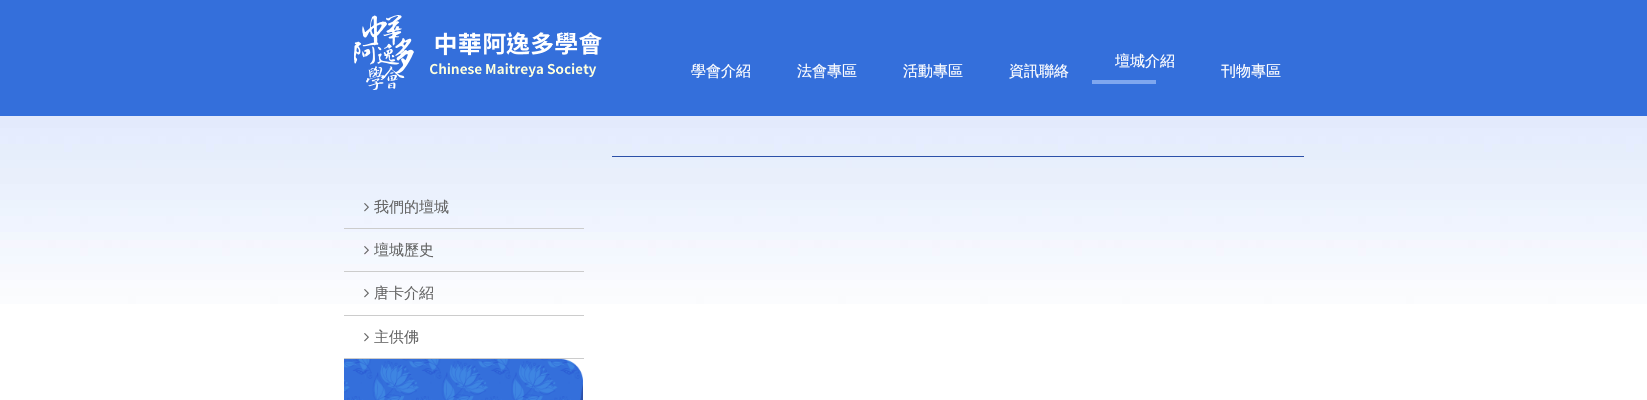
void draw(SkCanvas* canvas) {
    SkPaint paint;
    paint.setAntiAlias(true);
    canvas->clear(0xFFFFFFFF);
    canvas->drawImageRect(SkImages::DeferredFromEncodedData(SkData::MakeFromFileName("img1.png")), SkRect::MakeXYWH(0, 116, 1647, 188), SkSamplingOptions());
    paint.setColor(0xFF346FDB);
    canvas->drawRect(SkRect::MakeXYWH(0, 0, 1647, 116), paint);
    canvas->drawImageRect(SkImages::DeferredFromEncodedData(SkData::MakeFromFileName("img2.png")), SkRect::MakeXYWH(354, 15, 60, 75), SkSamplingOptions());
    canvas->drawImageRect(SkImages::DeferredFromEncodedData(SkData::MakeFromFileName("img3.png")), SkRect::MakeXYWH(430, 32, 172, 45), SkSamplingOptions());
    SkFont font1(fontMgr->matchFamilyStyle("WenQuanYi Zen Hei", SkFontStyle(500, SkFontStyle::kNormal_Width, SkFontStyle::kUpright_Slant)), 15);
    font1.setSubpixel(true);
    paint.setColor(0xFFFFFFFF);
    canvas->drawString("壇城介紹", 1115, 66, font1, paint);
    paint.setColor(0xFF7FA7EF);
    canvas->drawRect(SkRect::MakeXYWH(1092, 80, 64, 4), paint);
    paint.setColor(0xFFFFFFFF);
    canvas->drawString("學會介紹", 691, 76, font1, paint);
    canvas->drawString("法會專區", 797, 76, font1, paint);
    canvas->drawString("活動專區", 903, 76, font1, paint);
    canvas->drawString("資訊聯絡", 1009, 76, font1, paint);
    canvas->drawString("刊物專區", 1221, 76, font1, paint);
    paint.setColor(0xFF2B50A8);
    canvas->drawRect(SkRect::MakeXYWH(612, 156, 692, 1), paint);
    paint.setColor(0xFFCCCCCC);
    canvas->drawRect(SkRect::MakeXYWH(344, 228, 240, 1), paint);
    canvas->drawImageRect(SkImages::DeferredFromEncodedData(SkData::MakeFromFileName("img4.png")), SkRect::MakeXYWH(364, 203, 5, 9), SkSamplingOptions());
    paint.setColor(0xFF666666);
    canvas->drawString("我們的壇城", 374, 212, font1, paint);
    paint.setColor(0xFFCCCCCC);
    canvas->drawRect(SkRect::MakeXYWH(344, 271, 240, 1), paint);
    canvas->drawImageRect(SkImages::DeferredFromEncodedData(SkData::MakeFromFileName("img5.png")), SkRect::MakeXYWH(364, 246, 5, 9), SkSamplingOptions());
    paint.setColor(0xFF666666);
    canvas->drawString("壇城歷史", 374, 255, font1, paint);
    paint.setColor(0xFFCCCCCC);
    canvas->drawRect(SkRect::MakeXYWH(344, 315, 240, 1), paint);
    canvas->drawImageRect(SkImages::DeferredFromEncodedData(SkData::MakeFromFileName("img6.png")), SkRect::MakeXYWH(364, 289, 5, 9), SkSamplingOptions());
    paint.setColor(0xFF666666);
    canvas->drawString("唐卡介紹", 374, 298, font1, paint);
    paint.setColor(0xFFCCCCCC);
    canvas->drawRect(SkRect::MakeXYWH(344, 358, 240, 1), paint);
    canvas->drawImageRect(SkImages::DeferredFromEncodedData(SkData::MakeFromFileName("img7.png")), SkRect::MakeXYWH(364, 333, 5, 9), SkSamplingOptions());
    paint.setColor(0xFF666666);
    canvas->drawString("主供佛", 374, 342, font1, paint);
    canvas->drawImageRect(SkImages::DeferredFromEncodedData(SkData::MakeFromFileName("img8.png")), SkRect::MakeXYWH(344, 359, 239, 41), SkSamplingOptions());
}
